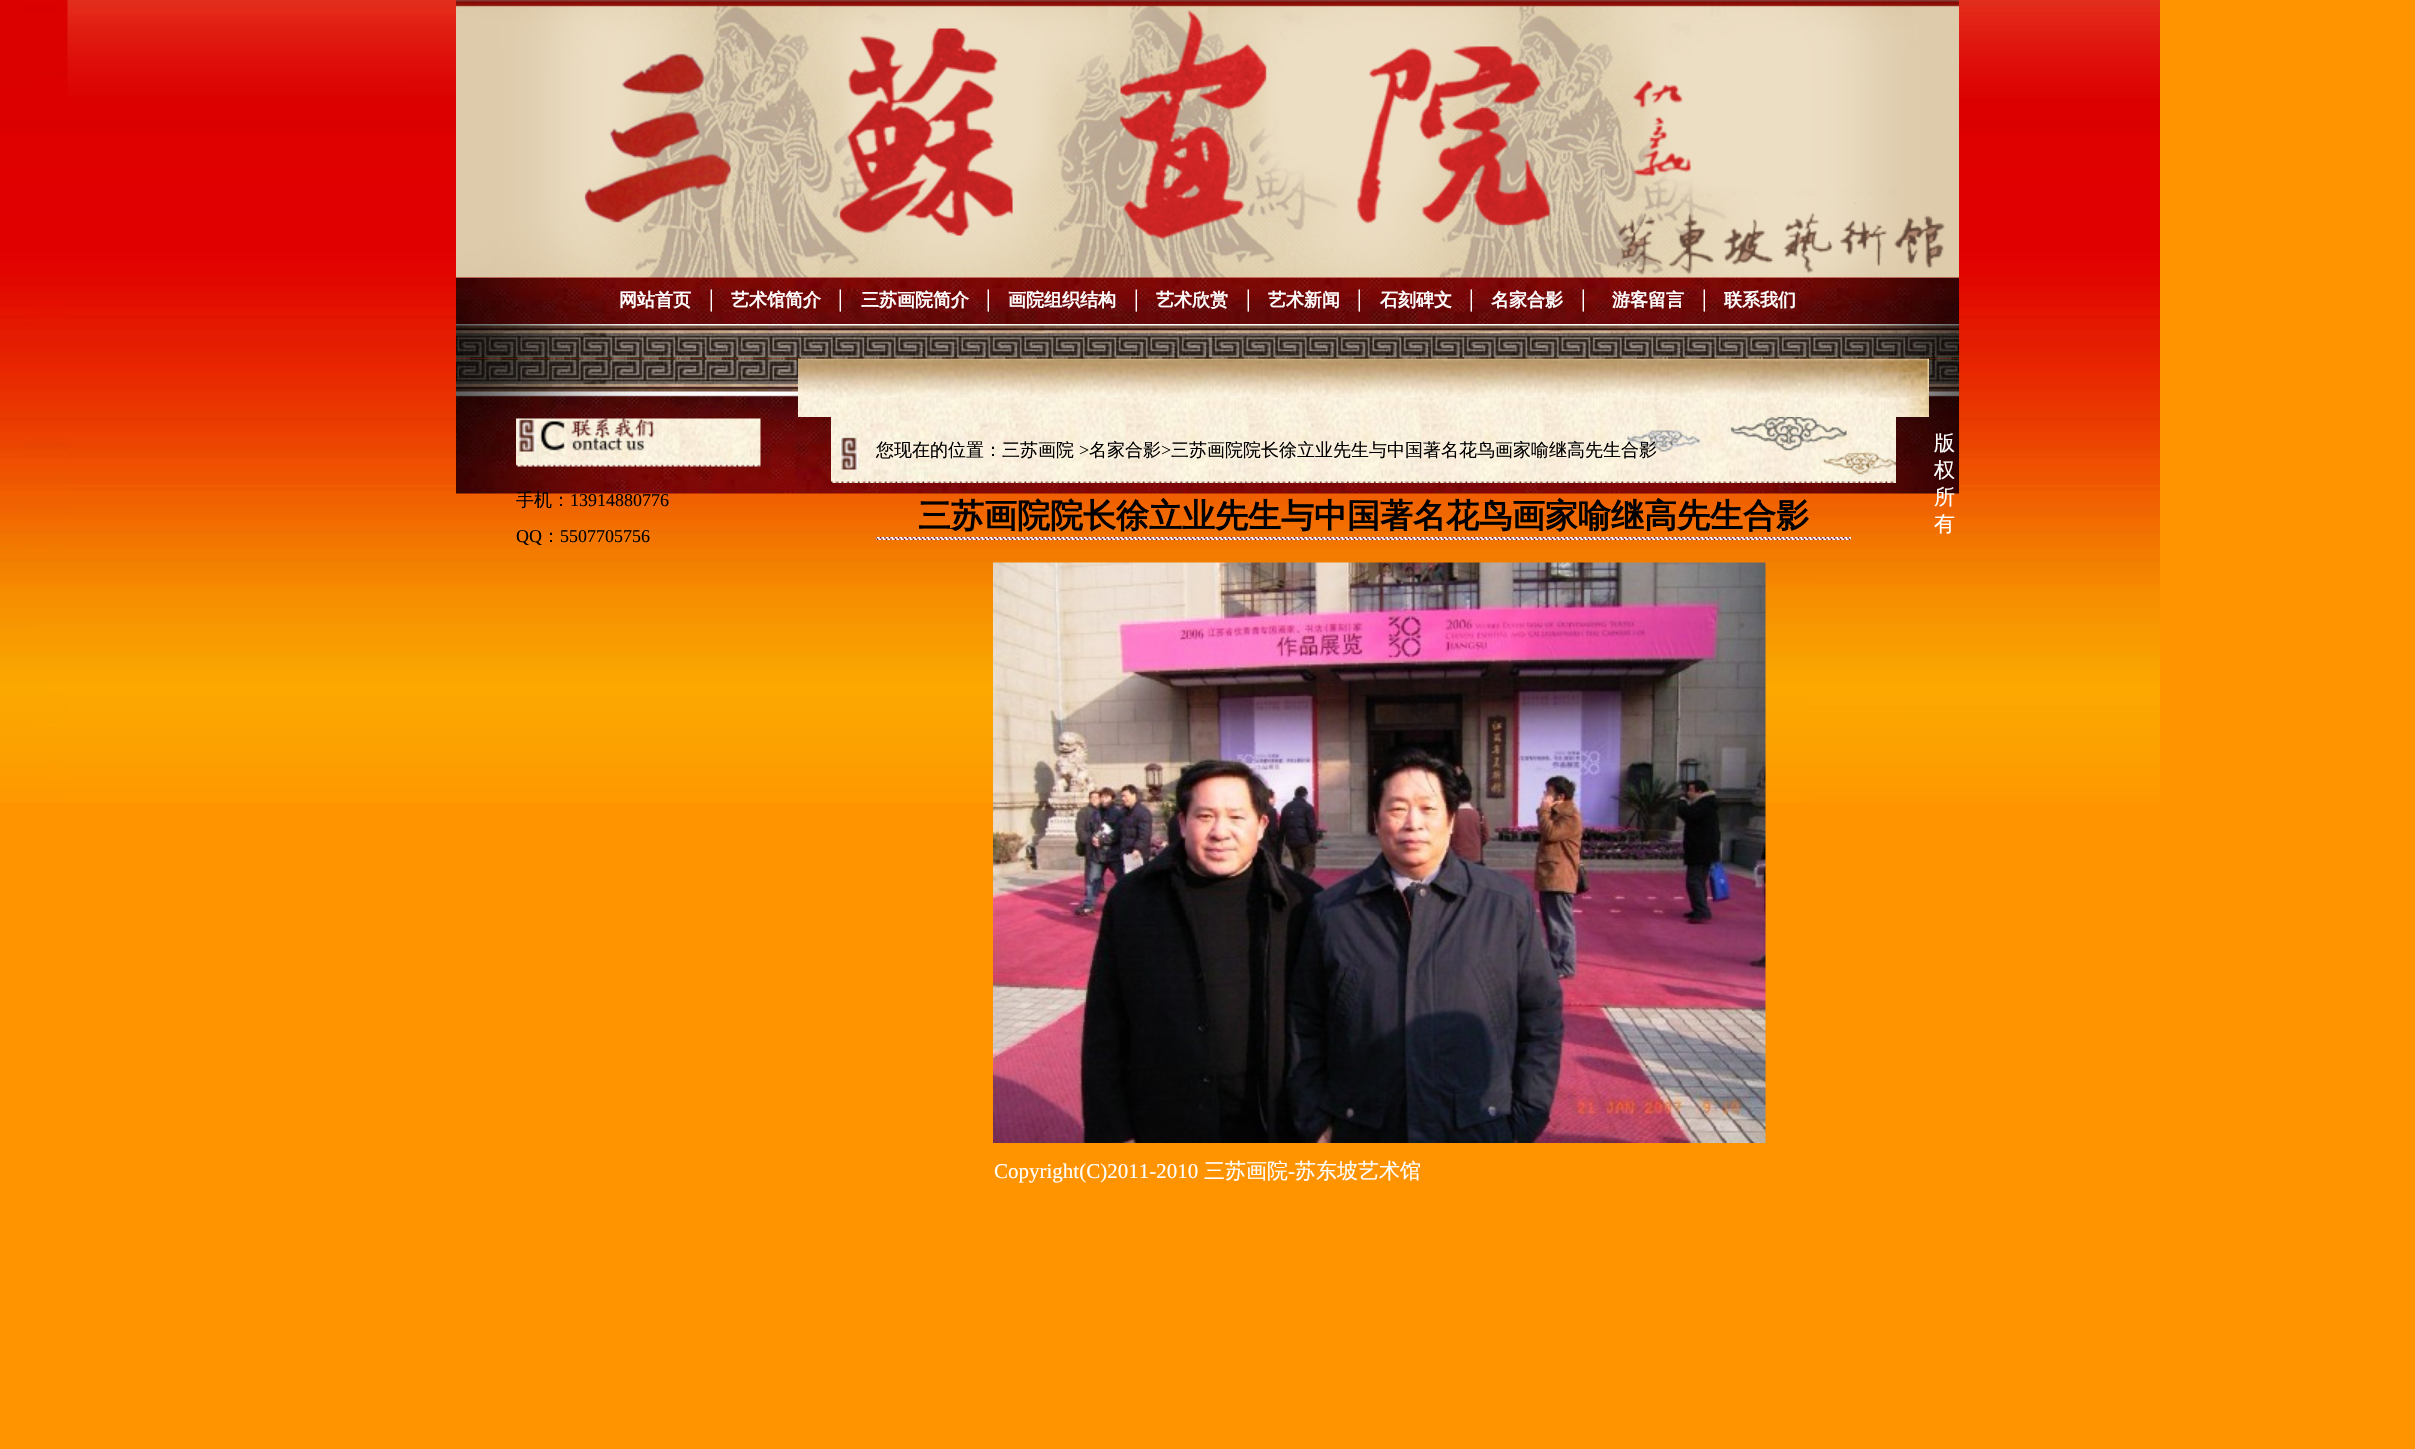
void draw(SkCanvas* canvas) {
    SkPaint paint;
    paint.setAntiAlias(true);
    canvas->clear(0xFFFF9400);
    canvas->drawImageRect(SkImages::DeferredFromEncodedData(SkData::MakeFromFileName("img1.png")), SkRect::MakeXYWH(0, 0, 2160, 803), SkSamplingOptions());
    canvas->drawImageRect(SkImages::DeferredFromEncodedData(SkData::MakeFromFileName("img3.png")), SkRect::MakeXYWH(456, 277, 1503, 47), SkSamplingOptions());
    canvas->drawImageRect(SkImages::DeferredFromEncodedData(SkData::MakeFromFileName("img2.png")), SkRect::MakeXYWH(456, 0, 1503, 278), SkSamplingOptions());
    SkFont font1(fontMgr->matchFamilyStyle("WenQuanYi Zen Hei", SkFontStyle::Bold()), 18);
    font1.setSubpixel(true);
    paint.setColor(0xFFFFFFFF);
    canvas->drawString("网站首页", 619, 306, font1, paint);
    SkFont font2(fontMgr->matchFamilyStyle("Liberation Serif", SkFontStyle::Bold()), 18);
    font2.setSubpixel(true);
    canvas->drawString("│", 705, 306, font2, paint);
    canvas->drawString("艺术馆简介", 731, 306, font1, paint);
    canvas->drawString("│", 834, 306, font2, paint);
    canvas->drawString("三苏画院简介", 861, 306, font1, paint);
    canvas->drawString("│", 982, 306, font2, paint);
    canvas->drawString("画院组织结构", 1008, 306, font1, paint);
    canvas->drawString("│", 1130, 306, font2, paint);
    canvas->drawString("艺术欣赏", 1156, 306, font1, paint);
    canvas->drawString("│", 1242, 306, font2, paint);
    canvas->drawString("艺术新闻", 1268, 306, font1, paint);
    canvas->drawString("│", 1353, 306, font2, paint);
    canvas->drawString("石刻碑文", 1380, 306, font1, paint);
    canvas->drawString("│", 1465, 306, font2, paint);
    canvas->drawString("名家合影", 1491, 306, font1, paint);
    canvas->drawString("│", 1577, 306, font2, paint);
    canvas->drawString("游客留言", 1612, 306, font1, paint);
    canvas->drawString("│", 1698, 306, font2, paint);
    canvas->drawString("联系我们", 1724, 306, font1, paint);
    canvas->drawImageRect(SkImages::DeferredFromEncodedData(SkData::MakeFromFileName("img5.png")), SkRect::MakeXYWH(456, 358, 1503, 136), SkSamplingOptions());
    canvas->drawImageRect(SkImages::DeferredFromEncodedData(SkData::MakeFromFileName("img7.png")), SkRect::MakeXYWH(798, 358, 1131, 59), SkSamplingOptions());
    canvas->drawImageRect(SkImages::DeferredFromEncodedData(SkData::MakeFromFileName("img4.png")), SkRect::MakeXYWH(456, 324, 1503, 35), SkSamplingOptions());
    SkFont font3(fontMgr->matchFamilyStyle("WenQuanYi Zen Hei", SkFontStyle(500, SkFontStyle::kNormal_Width, SkFontStyle::kUpright_Slant)), 21);
    font3.setSubpixel(true);
    canvas->drawString("版", 1934, 450, font3, paint);
    canvas->drawString("权", 1934, 477, font3, paint);
    canvas->drawString("所", 1934, 504, font3, paint);
    canvas->drawString("有", 1934, 531, font3, paint);
    SkFont font4(fontMgr->matchFamilyStyle("Liberation Serif", SkFontStyle::Normal()), 21);
    font4.setSubpixel(true);
    canvas->drawString("Copyright(C)2011-2010", 994, 1178, font4, paint);
    canvas->drawString("三苏画院", 1204, 1178, font3, paint);
    canvas->drawString("-", 1288, 1178, font4, paint);
    canvas->drawString("苏东坡艺术馆", 1295, 1178, font3, paint);
    canvas->drawImageRect(SkImages::DeferredFromEncodedData(SkData::MakeFromFileName("img6.png")), SkRect::MakeXYWH(516, 418, 245, 49), SkSamplingOptions());
    SkFont font5(fontMgr->matchFamilyStyle("WenQuanYi Zen Hei", SkFontStyle(500, SkFontStyle::kNormal_Width, SkFontStyle::kUpright_Slant)), 18);
    font5.setSubpixel(true);
    paint.setColor(0xFF000000);
    canvas->drawString("手机：", 516, 506, font5, paint);
    SkFont font6(fontMgr->matchFamilyStyle("Liberation Serif", SkFontStyle::Normal()), 18);
    font6.setSubpixel(true);
    canvas->drawString("13914880776", 570, 506, font6, paint);
    canvas->drawString("QQ", 516, 542, font6, paint);
    canvas->drawString("：", 542, 542, font5, paint);
    canvas->drawString("5507705756", 560, 542, font6, paint);
    canvas->drawImageRect(SkImages::DeferredFromEncodedData(SkData::MakeFromFileName("img8.png")), SkRect::MakeXYWH(831, 417, 1065, 66), SkSamplingOptions());
    canvas->drawString("您现在的位置：三苏画院", 876, 456, font5, paint);
    canvas->drawString(">", 1079, 456, font6, paint);
    canvas->drawString("名家合影", 1089, 456, font5, paint);
    canvas->drawString(">", 1161, 456, font6, paint);
    canvas->drawString("三苏画院院长徐立业先生与中国著名花鸟画家喻继高先生合影", 1171, 456, font5, paint);
    canvas->drawImageRect(SkImages::DeferredFromEncodedData(SkData::MakeFromFileName("img9.png")), SkRect::MakeXYWH(876, 537, 975, 3), SkSamplingOptions());
    SkFont font7(fontMgr->matchFamilyStyle("WenQuanYi Zen Hei", SkFontStyle::Bold()), 33);
    font7.setSubpixel(true);
    canvas->drawString("三苏画院院长徐立业先生与中国著名花鸟画家喻继高先生合影", 918, 527, font7, paint);
    canvas->drawImageRect(SkImages::DeferredFromEncodedData(SkData::MakeFromFileName("img10.png")), SkRect::MakeXYWH(993, 562, 773, 581), SkSamplingOptions());
}
